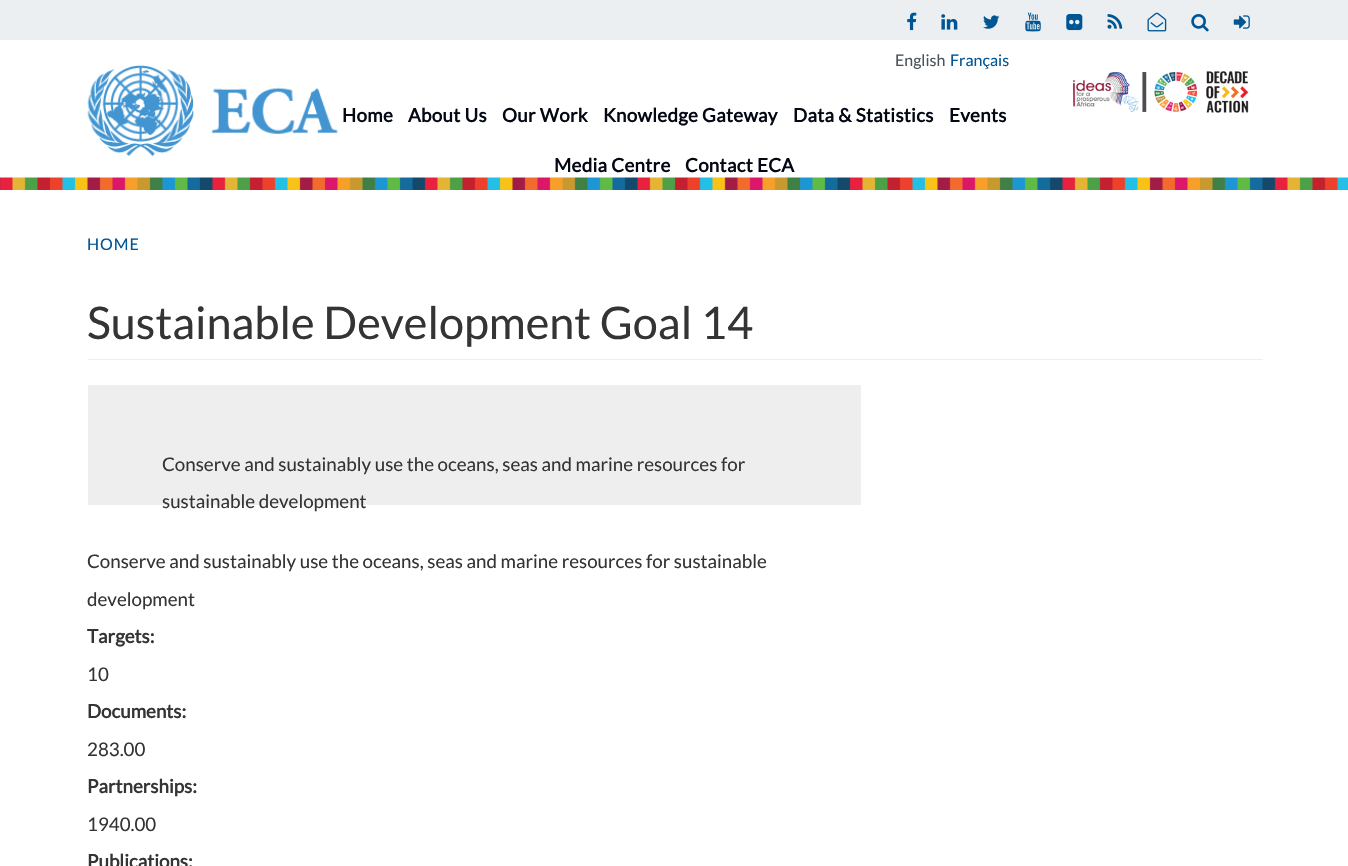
void draw(SkCanvas* canvas) {
    SkPaint paint;
    paint.setAntiAlias(true);
    auto spacedText = [&](const char* s, float x, float y, const SkFont& font, const SkPaint& ink, float letter, float word) {
        std::vector<SkGlyphID> glyphs(font.countText(s, strlen(s), SkTextEncoding::kUTF8));
        std::vector<float> xs(glyphs.size());
        font.textToGlyphs(s, strlen(s), SkTextEncoding::kUTF8, glyphs);
        font.getXPos(glyphs, xs, x);
        float extra = 0;
        for (size_t i = 0; i < glyphs.size(); i++) {
            xs[i] += extra;
            extra += letter + word * (glyphs[i] == font.unicharToGlyph(' '));
        }
        canvas->drawTextBlob(SkTextBlob::MakeFromPosHGlyphs(glyphs, xs, y, font), 0, 0, ink);
    };
    canvas->clear(0xFFFFFFFF);
    canvas->drawImageRect(SkImages::DeferredFromEncodedData(SkData::MakeFromFileName("img1.png")), SkRect::MakeXYWH(0, 177, 1348, 13), SkSamplingOptions());
    paint.setColor(0xFFECEFF1);
    canvas->drawRect(SkRect::MakeXYWH(0, 0, 1348, 40), paint);
    canvas->drawImageRect(SkImages::DeferredFromEncodedData(SkData::MakeFromFileName("img2.png")), SkRect::MakeXYWH(1191, 14, 18, 18), SkSamplingOptions());
    canvas->drawImageRect(SkImages::DeferredFromEncodedData(SkData::MakeFromFileName("img3.png")), SkRect::MakeXYWH(1233, 15, 17, 14), SkSamplingOptions());
    canvas->drawImageRect(SkImages::DeferredFromEncodedData(SkData::MakeFromFileName("img4.png")), SkRect::MakeXYWH(907, 12, 10, 19), SkSamplingOptions());
    canvas->drawImageRect(SkImages::DeferredFromEncodedData(SkData::MakeFromFileName("img5.png")), SkRect::MakeXYWH(941, 14, 17, 16), SkSamplingOptions());
    canvas->drawImageRect(SkImages::DeferredFromEncodedData(SkData::MakeFromFileName("img6.png")), SkRect::MakeXYWH(983, 15, 17, 14), SkSamplingOptions());
    canvas->drawImageRect(SkImages::DeferredFromEncodedData(SkData::MakeFromFileName("img7.png")), SkRect::MakeXYWH(1025, 12, 16, 20), SkSamplingOptions());
    canvas->drawImageRect(SkImages::DeferredFromEncodedData(SkData::MakeFromFileName("img8.png")), SkRect::MakeXYWH(1066, 14, 17, 17), SkSamplingOptions());
    canvas->drawImageRect(SkImages::DeferredFromEncodedData(SkData::MakeFromFileName("img9.png")), SkRect::MakeXYWH(1107, 14, 16, 15), SkSamplingOptions());
    canvas->drawImageRect(SkImages::DeferredFromEncodedData(SkData::MakeFromFileName("img10.png")), SkRect::MakeXYWH(1147, 12, 20, 20), SkSamplingOptions());
    SkFont font1(fontMgr->matchFamilyStyle("Lato", SkFontStyle::Normal()), 16);
    font1.setSubpixel(true);
    paint.setColor(0xFF46535B);
    canvas->drawString("English", 895, 66, font1, paint);
    paint.setColor(0xFF005694);
    canvas->drawString("Français", 950, 66, font1, paint);
    canvas->drawImageRect(SkImages::DeferredFromEncodedData(SkData::MakeFromFileName("img11.png")), SkRect::MakeXYWH(87, 65, 251, 92), SkSamplingOptions());
    canvas->drawImageRect(SkImages::DeferredFromEncodedData(SkData::MakeFromFileName("img12.png")), SkRect::MakeXYWH(1073, 71, 176, 42), SkSamplingOptions());
    SkFont font2(fontMgr->matchFamilyStyle("Lato", SkFontStyle::Bold()), 18.75f);
    font2.setSubpixel(true);
    paint.setColor(0xFF030814);
    spacedText("Home", 342, 122, font2, paint, 0.3f, 0);
    spacedText("About Us", 408, 122, font2, paint, 0.3f, 0);
    spacedText("Our Work", 502, 122, font2, paint, 0.3f, 0);
    spacedText("Knowledge Gateway", 603, 122, font2, paint, 0.3f, 0);
    spacedText("Data & Statistics", 793, 122, font2, paint, 0.3f, 0);
    spacedText("Events", 949, 122, font2, paint, 0.3f, 0);
    spacedText("Media Centre", 554, 172, font2, paint, 0.3f, 0);
    spacedText("Contact ECA", 685, 172, font2, paint, 0.3f, 0);
    paint.setColor(0xFF005694);
    spacedText("HOME", 87, 250, font1, paint, 1, 0);
    paint.setColor(0xFFEEEEEE);
    canvas->drawRect(SkRect::MakeXYWH(88, 359, 1175, 1), paint);
    SkFont font3(fontMgr->matchFamilyStyle("Lato", SkFontStyle::Normal()), 45);
    font3.setSubpixel(true);
    paint.setColor(0xFF343434);
    canvas->drawString("Sustainable Development Goal 14", 87, 339, font3, paint);
    paint.setColor(0xFFEEEEEE);
    canvas->drawRect(SkRect::MakeXYWH(88, 385, 773, 120), paint);
    SkFont font4(fontMgr->matchFamilyStyle("Lato", SkFontStyle::Normal()), 18.75f);
    font4.setSubpixel(true);
    paint.setColor(0xFF343434);
    canvas->drawString("Conserve and sustainably use the oceans, seas and marine resources for", 162, 471, font4, paint);
    canvas->drawString("sustainable development", 162, 508, font4, paint);
    canvas->drawString("Conserve and sustainably use the oceans, seas and marine resources for sustainable", 87, 568, font4, paint);
    canvas->drawString("development", 87, 606, font4, paint);
    canvas->drawString("Targets:", 87, 643, font2, paint);
    canvas->drawString("10", 87, 681, font4, paint);
    canvas->drawString("Documents:", 87, 718, font2, paint);
    canvas->drawString("283.00", 87, 756, font4, paint);
    canvas->drawString("Partnerships:", 87, 793, font2, paint);
    canvas->drawString("1940.00", 87, 831, font4, paint);
    canvas->drawString("Publications:", 87, 868, font2, paint);
}
